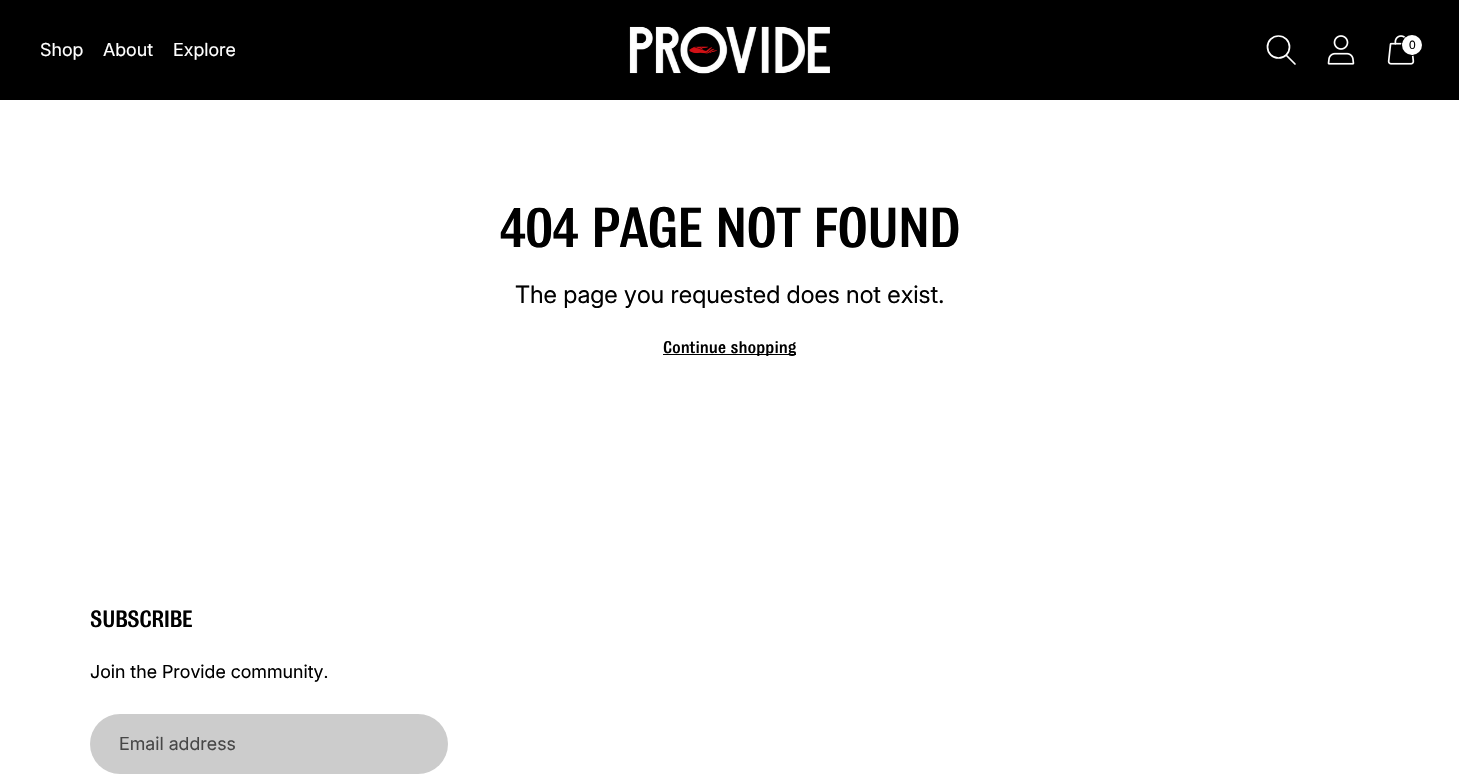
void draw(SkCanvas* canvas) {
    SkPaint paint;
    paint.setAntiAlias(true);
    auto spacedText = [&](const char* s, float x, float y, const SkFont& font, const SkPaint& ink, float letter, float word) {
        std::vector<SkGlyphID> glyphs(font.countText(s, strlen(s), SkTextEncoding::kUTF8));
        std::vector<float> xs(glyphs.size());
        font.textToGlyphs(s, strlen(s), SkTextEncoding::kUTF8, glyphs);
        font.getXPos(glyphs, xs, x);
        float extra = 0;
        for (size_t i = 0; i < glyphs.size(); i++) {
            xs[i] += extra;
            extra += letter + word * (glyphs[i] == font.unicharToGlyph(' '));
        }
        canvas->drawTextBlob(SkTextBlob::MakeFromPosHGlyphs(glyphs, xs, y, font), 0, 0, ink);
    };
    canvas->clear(0xFFFFFFFF);
    paint.setColor(0xFF000000);
    canvas->drawRect(SkRect::MakeXYWH(0, 0, 1459, 100), paint);
    SkFont font1(fontMgr->matchFamilyStyle("Inter", SkFontStyle::Normal()), 18);
    font1.setSubpixel(true);
    paint.setColor(0xFFFFFFFF);
    canvas->drawString("Shop", 40, 56, font1, paint);
    canvas->drawString("About", 103, 56, font1, paint);
    canvas->drawString("Explore", 173, 56, font1, paint);
    canvas->drawImageRect(SkImages::DeferredFromEncodedData(SkData::MakeFromFileName("img1.png")), SkRect::MakeXYWH(629, 26, 201, 48), SkSamplingOptions());
    paint.setStyle(SkPaint::kStroke_Style);
    paint.setStrokeWidth(1.7f);
    canvas->drawCircle(1278.5f, 47, 11, paint);
    paint.setStrokeCap(SkPaint::kRound_Cap);
    paint.setStrokeJoin(SkPaint::kRound_Join);
    canvas->drawPath(SkPathBuilder().moveTo(1286.5f, 55.5f).lineTo(1295, 64).detach(), paint);
    canvas->drawImageRect(SkImages::DeferredFromEncodedData(SkData::MakeFromFileName("img2.png")), SkRect::MakeXYWH(1327, 35, 28, 30), SkSamplingOptions());
    canvas->drawImageRect(SkImages::DeferredFromEncodedData(SkData::MakeFromFileName("img3.png")), SkRect::MakeXYWH(1387, 35, 28, 30), SkSamplingOptions());
    paint.setStrokeWidth(1);
    paint.setStrokeCap(SkPaint::kButt_Cap);
    paint.setStrokeJoin(SkPaint::kMiter_Join);
    paint.setColor(0xFF000000);
    canvas->drawCircle(1412, 45, 10.5f, paint);
    paint.setStyle(SkPaint::kFill_Style);
    paint.setColor(0xFFFFFFFF);
    canvas->drawCircle(1412, 45, 10, paint);
    SkFont font2(fontMgr->matchFamilyStyle("Liberation Sans", SkFontStyle::Normal()), 12);
    font2.setSubpixel(true);
    paint.setColor(0xFF000000);
    canvas->drawString("0", 1409, 49, font2, paint);
    SkFont font3(fontMgr->matchFamilyStyle("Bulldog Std", SkFontStyle(500, SkFontStyle::kNormal_Width, SkFontStyle::kUpright_Slant)), 60);
    font3.setSubpixel(true);
    spacedText("404 PAGE NOT FOUND", 499, 247, font3, paint, -1.5f, 0);
    SkFont font4(fontMgr->matchFamilyStyle("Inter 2", SkFontStyle::Normal()), 24);
    font4.setSubpixel(true);
    canvas->drawString("The page you requested does not exist.", 515, 303, font4, paint);
    canvas->drawRect(SkRect::MakeXYWH(663, 354, 133, 1), paint);
    SkFont font5(fontMgr->matchFamilyStyle("Bulldog Std", SkFontStyle(500, SkFontStyle::kNormal_Width, SkFontStyle::kUpright_Slant)), 18);
    font5.setSubpixel(true);
    canvas->drawString("Continue shopping", 663, 353, font5, paint);
    SkFont font6(fontMgr->matchFamilyStyle("Bulldog Std", SkFontStyle(500, SkFontStyle::kNormal_Width, SkFontStyle::kUpright_Slant)), 25);
    font6.setSubpixel(true);
    spacedText("SUBSCRIBE", 90, 627, font6, paint, -0.6f, 0);
    canvas->drawString("Join the Provide community.", 90, 678, font1, paint);
    paint.setColor(0xFFCCCCCC);
    canvas->drawRoundRect(SkRect::MakeXYWH(90, 714, 358, 60), 30, 30, paint);
    paint.setColor(0xFF474747);
    canvas->drawString("Email address", 119, 750, font1, paint);
}
